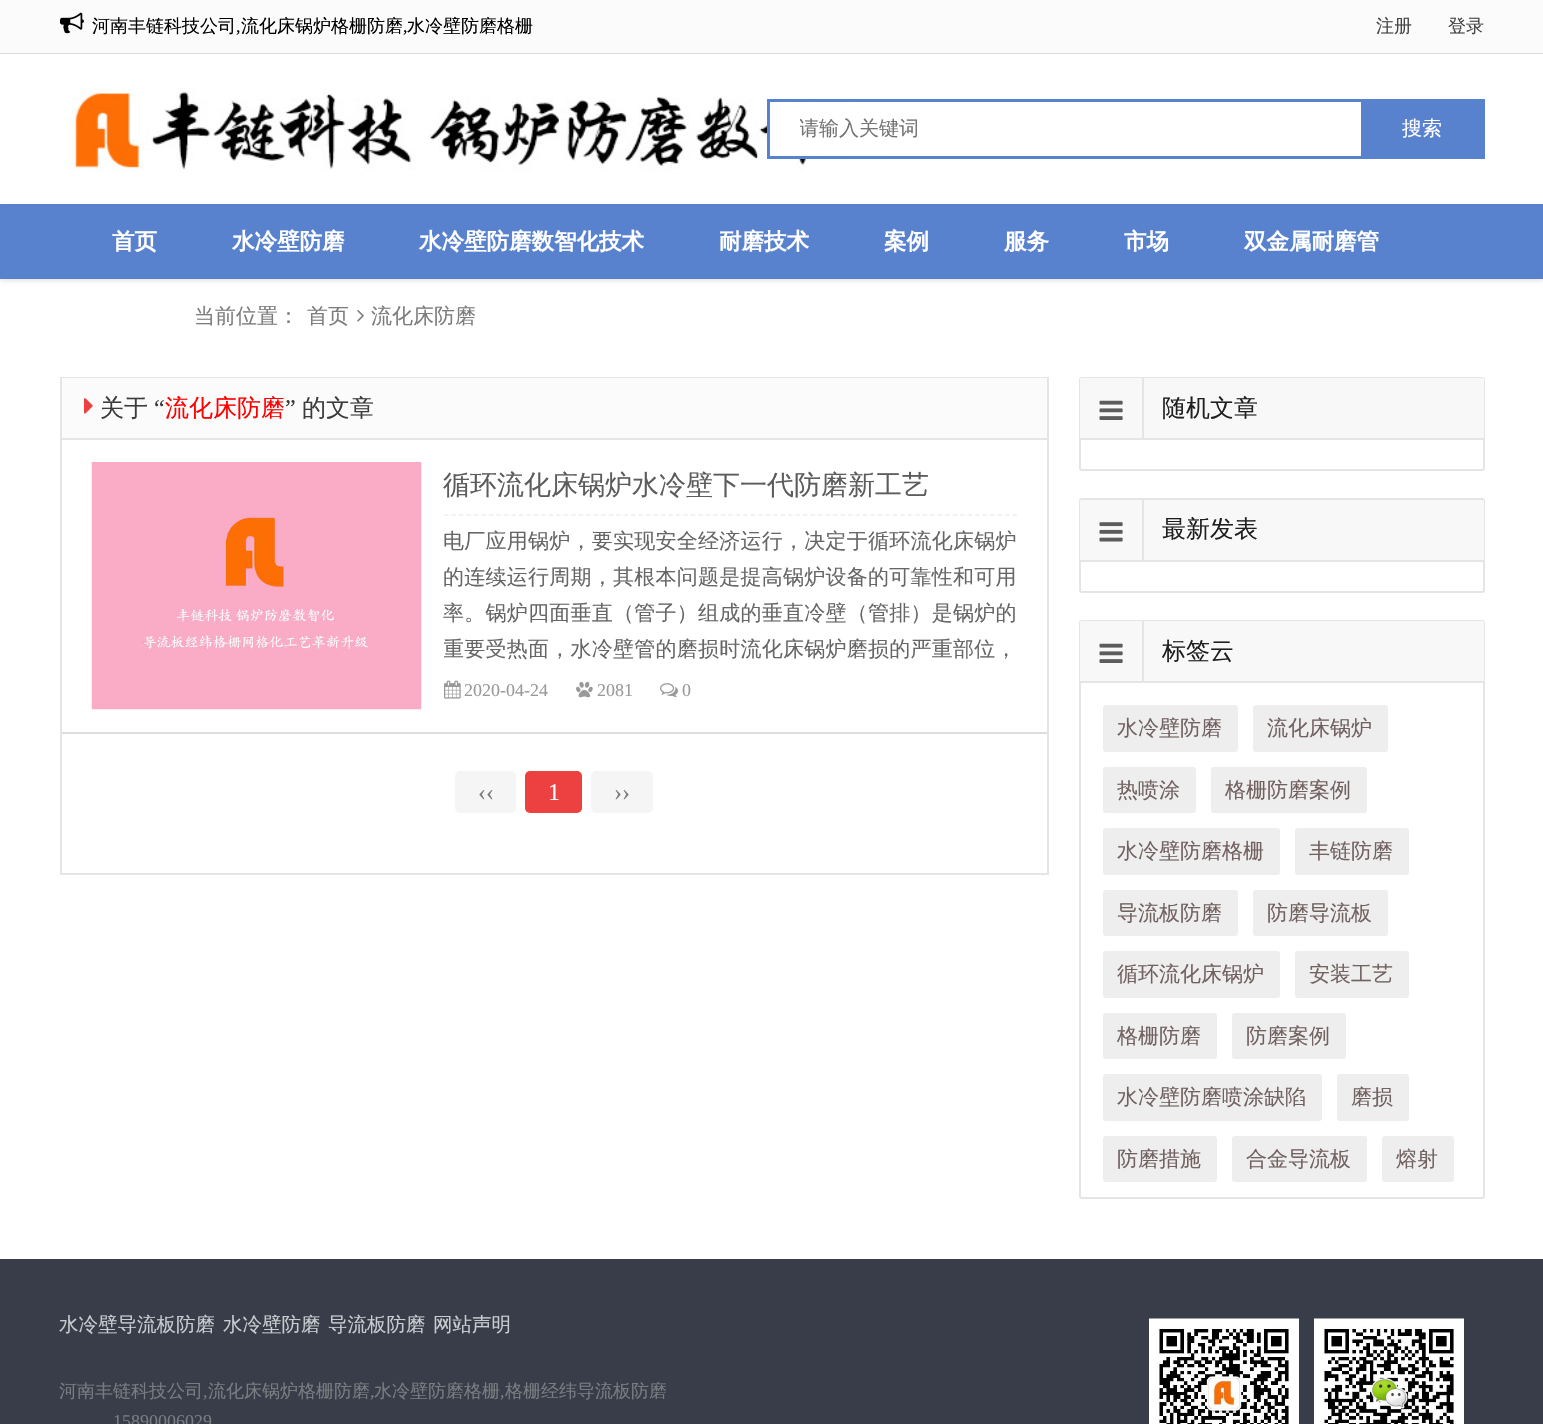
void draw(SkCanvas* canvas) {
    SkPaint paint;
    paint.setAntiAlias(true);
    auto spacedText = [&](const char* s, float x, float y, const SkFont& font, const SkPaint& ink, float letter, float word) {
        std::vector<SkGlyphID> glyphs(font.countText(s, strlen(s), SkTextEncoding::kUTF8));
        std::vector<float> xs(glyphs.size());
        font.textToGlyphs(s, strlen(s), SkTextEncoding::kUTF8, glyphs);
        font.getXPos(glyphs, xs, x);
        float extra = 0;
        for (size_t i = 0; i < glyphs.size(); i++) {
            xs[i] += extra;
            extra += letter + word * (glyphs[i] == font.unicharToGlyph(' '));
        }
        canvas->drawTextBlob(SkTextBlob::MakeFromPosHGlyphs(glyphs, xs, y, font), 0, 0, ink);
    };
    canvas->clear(0xFFFFFFFF);
    paint.setColor(0xFFFBFBFB);
    canvas->drawRect(SkRect::MakeXYWH(0, 0, 1543, 53), paint);
    paint.setColor(0xFFDDDDDD);
    canvas->drawRect(SkRect::MakeXYWH(0, 53, 1543, 1), paint);
    canvas->drawImageRect(SkImages::DeferredFromEncodedData(SkData::MakeFromFileName("img1.png")), SkRect::MakeXYWH(60, 12, 24, 22), SkSamplingOptions());
    SkFont font1(fontMgr->matchFamilyStyle("WenQuanYi Zen Hei", SkFontStyle(500, SkFontStyle::kNormal_Width, SkFontStyle::kUpright_Slant)), 18);
    font1.setSubpixel(true);
    paint.setColor(0xFF000000);
    canvas->drawString("河南丰链科技公司", 92, 32, font1, paint);
    SkFont font2(fontMgr->matchFamilyStyle("Liberation Serif", SkFontStyle::Normal()), 18);
    font2.setSubpixel(true);
    canvas->drawString(",", 236, 32, font2, paint);
    canvas->drawString("流化床锅炉格栅防磨", 241, 32, font1, paint);
    canvas->drawString(",", 403, 32, font2, paint);
    canvas->drawString("水冷壁防磨格栅", 407, 32, font1, paint);
    paint.setColor(0xFF444444);
    canvas->drawString("注册", 1376, 32, font1, paint);
    canvas->drawString("登录", 1448, 32, font1, paint);
    canvas->drawImageRect(SkImages::DeferredFromEncodedData(SkData::MakeFromFileName("img2.png")), SkRect::MakeXYWH(71, 87, 817, 84), SkSamplingOptions());
    paint.setColor(0xFFFFFFFF);
    canvas->drawRect(SkRect::MakeXYWH(770, 102, 118, 54), paint);
    paint.setColor(0xFF5882CE);
    canvas->drawRect(SkRect::MakeXYWH(767, 99, 594, 3), paint);
    canvas->drawRect(SkRect::MakeXYWH(767, 156, 594, 3), paint);
    canvas->drawRect(SkRect::MakeXYWH(767, 99, 3, 60), paint);
    canvas->save();
    canvas->clipRect(SkRect::MakeXYWH(800, 116, 540, 27));
    SkFont font3(fontMgr->matchFamilyStyle("WenQuanYi Zen Hei", SkFontStyle(500, SkFontStyle::kNormal_Width, SkFontStyle::kUpright_Slant)), 20);
    font3.setSubpixel(true);
    paint.setColor(0xFF757575);
    canvas->drawString("请输入关键词", 799, 135, font3, paint);
    canvas->restore();
    paint.setColor(0xFF5882CE);
    canvas->drawRect(SkRect::MakeXYWH(1361, 99, 124, 60), paint);
    paint.setColor(0xFFFFFFFF);
    canvas->drawString("搜索", 1402, 135, font3, paint);
    paint.setColor(0x1A000000);
    paint.setMaskFilter(SkMaskFilter::MakeBlur(kNormal_SkBlurStyle, 2));
    canvas->drawRect(SkRect::MakeXYWH(0, 206, 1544, 75), paint);
    paint.setMaskFilter(nullptr);
    paint.setColor(0xFF5882CE);
    canvas->drawRect(SkRect::MakeXYWH(0, 204, 1543, 75), paint);
    SkFont font4(fontMgr->matchFamilyStyle("WenQuanYi Zen Hei", SkFontStyle::Bold()), 22.5f);
    font4.setSubpixel(true);
    paint.setColor(0xFFFFFFFF);
    canvas->drawString("首页", 112, 249, font4, paint);
    canvas->drawString("水冷壁防磨", 232, 249, font4, paint);
    canvas->drawString("水冷壁防磨数智化技术", 419, 249, font4, paint);
    canvas->drawString("耐磨技术", 719, 249, font4, paint);
    canvas->drawString("案例", 884, 249, font4, paint);
    canvas->drawString("服务", 1004, 249, font4, paint);
    canvas->drawString("市场", 1124, 249, font4, paint);
    canvas->drawString("双金属耐磨管", 1244, 249, font4, paint);
    SkFont font5(fontMgr->matchFamilyStyle("WenQuanYi Zen Hei", SkFontStyle(500, SkFontStyle::kNormal_Width, SkFontStyle::kUpright_Slant)), 21);
    font5.setSubpixel(true);
    paint.setColor(0xFF7C7C7C);
    canvas->drawString("当前位置：", 194, 323, font5, paint);
    canvas->drawString("首页", 307, 323, font5, paint);
    canvas->drawImageRect(SkImages::DeferredFromEncodedData(SkData::MakeFromFileName("img3.png")), SkRect::MakeXYWH(357, 310, 7, 12), SkSamplingOptions());
    canvas->drawString("流化床防磨", 371, 323, font5, paint);
    paint.setStyle(SkPaint::kStroke_Style);
    paint.setStrokeWidth(2);
    paint.setColor(0xFFE5E5E5);
    canvas->drawRect(SkRect::MakeXYWH(61, 378, 987, 496), paint);
    paint.setStyle(SkPaint::kFill_Style);
    paint.setColor(0xFFFBFBFB);
    canvas->drawRect(SkRect::MakeXYWH(62, 378, 985, 60), paint);
    paint.setColor(0xFFE5E5E5);
    canvas->drawRect(SkRect::MakeXYWH(62, 438, 985, 2), paint);
    canvas->drawImageRect(SkImages::DeferredFromEncodedData(SkData::MakeFromFileName("img4.png")), SkRect::MakeXYWH(84, 398, 9, 16), SkSamplingOptions());
    SkFont font6(fontMgr->matchFamilyStyle("WenQuanYi Zen Hei", SkFontStyle(500, SkFontStyle::kNormal_Width, SkFontStyle::kUpright_Slant)), 24);
    font6.setSubpixel(true);
    paint.setColor(0xFF3C3C3C);
    canvas->drawString("关于", 100, 416, font6, paint);
    SkFont font7(fontMgr->matchFamilyStyle("Liberation Serif", SkFontStyle::Normal()), 24);
    font7.setSubpixel(true);
    canvas->drawString("“", 154, 416, font7, paint);
    paint.setColor(0xFFFF0000);
    canvas->drawString("流化床防磨", 165, 416, font6, paint);
    paint.setColor(0xFF3C3C3C);
    canvas->drawString("”", 285, 416, font7, paint);
    canvas->drawString("的文章", 302, 416, font6, paint);
    paint.setColor(0xFFDDDDDD);
    canvas->drawRect(SkRect::MakeXYWH(62, 732, 985, 2), paint);
    canvas->drawImageRect(SkImages::DeferredFromEncodedData(SkData::MakeFromFileName("img5.png")), SkRect::MakeXYWH(91, 462, 331, 248), SkSamplingOptions());
    paint.setStyle(SkPaint::kStroke_Style);
    paint.setStrokeWidth(1.5f);
    paint.setColor(0xFFEEEEEE);
    paint.setPathEffect(SkDashPathEffect::Make({{4.5f, 2.98f}}, 0));
    canvas->drawPath(SkPathBuilder().moveTo(444, 515).lineTo(1017, 515).detach(), paint);
    paint.setPathEffect(nullptr);
    SkFont font8(fontMgr->matchFamilyStyle("WenQuanYi Zen Hei", SkFontStyle(500, SkFontStyle::kNormal_Width, SkFontStyle::kUpright_Slant)), 27);
    font8.setSubpixel(true);
    paint.setStyle(SkPaint::kFill_Style);
    paint.setColor(0xFF5C5C5C);
    canvas->drawString("循环流化床锅炉水冷壁下一代防磨新工艺", 443, 494, font8, paint);
    paint.setColor(0xFF666666);
    spacedText("电厂应用锅炉，要实现安全经济运行，决定于循环流化床锅炉", 443, 548, font5, paint, 0.25f, 0);
    spacedText("的连续运行周期，其根本问题是提高锅炉设备的可靠性和可用", 443, 584, font5, paint, 0.25f, 0);
    spacedText("率。锅炉四面垂直（管子）组成的垂直冷壁（管排）是锅炉的", 443, 620, font5, paint, 0.25f, 0);
    canvas->save();
    canvas->clipRect(SkRect::MakeXYWH(444, 524, 573, 144));
    spacedText("重要受热面，水冷壁管的磨损时流化床锅炉磨损的严重部位，", 443, 656, font5, paint, 0.25f, 0);
    canvas->restore();
    canvas->drawImageRect(SkImages::DeferredFromEncodedData(SkData::MakeFromFileName("img6.png")), SkRect::MakeXYWH(444, 680, 17, 19), SkSamplingOptions());
    paint.setColor(0xFF999999);
    canvas->drawString("2020-04-24", 464, 696, font2, paint);
    canvas->drawImageRect(SkImages::DeferredFromEncodedData(SkData::MakeFromFileName("img7.png")), SkRect::MakeXYWH(576, 681, 17, 17), SkSamplingOptions());
    canvas->drawString("2081", 597, 696, font2, paint);
    canvas->drawImageRect(SkImages::DeferredFromEncodedData(SkData::MakeFromFileName("img8.png")), SkRect::MakeXYWH(660, 683, 18, 15), SkSamplingOptions());
    canvas->drawString("0", 682, 696, font2, paint);
    paint.setColor(0xFFF5F5F5);
    canvas->drawRoundRect(SkRect::MakeXYWH(455, 771, 61, 42), 5, 5, paint);
    paint.setColor(0xFF7C7C7C);
    canvas->drawString("‹‹", 478, 800, font7, paint);
    paint.setColor(0xFFED4040);
    canvas->drawRoundRect(SkRect::MakeXYWH(525, 771, 57, 42), 5, 5, paint);
    paint.setColor(0xFFFFFFFF);
    canvas->drawString("1", 548, 800, font7, paint);
    paint.setColor(0xFFF5F5F5);
    canvas->drawRoundRect(SkRect::MakeXYWH(591, 771, 62, 42), 5, 5, paint);
    paint.setColor(0xFF7C7C7C);
    canvas->drawString("››", 614, 800, font7, paint);
    paint.setStyle(SkPaint::kStroke_Style);
    paint.setStrokeWidth(2);
    paint.setColor(0xFFE5E5E5);
    canvas->drawRoundRect(SkRect::MakeXYWH(1080, 378, 404, 92), 2, 2, paint);
    paint.setStyle(SkPaint::kFill_Style);
    paint.setColor(0xFFF8F8F8);
    canvas->drawPath(SkPathBuilder().moveTo(1081.5f, 378).lineTo(1482.5f, 378).cubicTo(1483.5f, 378, 1484, 378.5f, 1484, 379.5f).lineTo(1484, 440).lineTo(1080, 440).lineTo(1080, 379.5f).cubicTo(1080, 378.5f, 1080.5f, 378, 1081.5f, 378).close().detach(), paint);
    paint.setColor(0xFFE5E5E5);
    canvas->drawRect(SkRect::MakeXYWH(1080, 438, 404, 2), paint);
    canvas->drawRect(SkRect::MakeXYWH(1142, 378, 2, 60), paint);
    canvas->drawImageRect(SkImages::DeferredFromEncodedData(SkData::MakeFromFileName("img9.png")), SkRect::MakeXYWH(1099, 400, 24, 20), SkSamplingOptions());
    paint.setColor(0xFF1F1F1F);
    canvas->drawString("随机文章", 1162, 416, font6, paint);
    paint.setStyle(SkPaint::kStroke_Style);
    paint.setColor(0xFFE5E5E5);
    canvas->drawRoundRect(SkRect::MakeXYWH(1080, 499, 404, 93), 2, 2, paint);
    paint.setStyle(SkPaint::kFill_Style);
    paint.setColor(0xFFF8F8F8);
    canvas->drawPath(SkPathBuilder().moveTo(1081.5f, 500).lineTo(1482.5f, 500).cubicTo(1483.5f, 500, 1484, 500.5f, 1484, 501.5f).lineTo(1484, 561).lineTo(1080, 561).lineTo(1080, 501.5f).cubicTo(1080, 500.5f, 1080.5f, 500, 1081.5f, 500).close().detach(), paint);
    paint.setColor(0xFFE5E5E5);
    canvas->drawRect(SkRect::MakeXYWH(1080, 560, 404, 2), paint);
    canvas->drawRect(SkRect::MakeXYWH(1142, 500, 2, 60), paint);
    canvas->drawImageRect(SkImages::DeferredFromEncodedData(SkData::MakeFromFileName("img10.png")), SkRect::MakeXYWH(1099, 522, 24, 20), SkSamplingOptions());
    paint.setColor(0xFF1F1F1F);
    canvas->drawString("最新发表", 1162, 537, font6, paint);
    paint.setStyle(SkPaint::kStroke_Style);
    paint.setColor(0xFFE5E5E5);
    canvas->drawRoundRect(SkRect::MakeXYWH(1080, 621, 404, 577), 2, 2, paint);
    paint.setStyle(SkPaint::kFill_Style);
    paint.setColor(0xFFF8F8F8);
    canvas->drawPath(SkPathBuilder().moveTo(1081.5f, 621).lineTo(1482.5f, 621).cubicTo(1483.5f, 621, 1484, 621.5f, 1484, 622.5f).lineTo(1484, 683).lineTo(1080, 683).lineTo(1080, 622.5f).cubicTo(1080, 621.5f, 1080.5f, 621, 1081.5f, 621).close().detach(), paint);
    paint.setColor(0xFFE5E5E5);
    canvas->drawRect(SkRect::MakeXYWH(1080, 681, 404, 2), paint);
    canvas->drawRect(SkRect::MakeXYWH(1142, 621, 2, 60), paint);
    canvas->drawImageRect(SkImages::DeferredFromEncodedData(SkData::MakeFromFileName("img9.png")), SkRect::MakeXYWH(1099, 643, 24, 20), SkSamplingOptions());
    paint.setColor(0xFF1F1F1F);
    canvas->drawString("标签云", 1162, 659, font6, paint);
    paint.setColor(0xFFEEEEEE);
    canvas->drawRoundRect(SkRect::MakeXYWH(1103, 705, 135, 47), 3, 3, paint);
    paint.setColor(0xFF726161);
    canvas->drawString("水冷壁防磨", 1117, 735, font5, paint);
    paint.setColor(0xFFEEEEEE);
    canvas->drawRoundRect(SkRect::MakeXYWH(1253, 705, 135, 47), 3, 3, paint);
    paint.setColor(0xFF726161);
    canvas->drawString("流化床锅炉", 1267, 735, font5, paint);
    paint.setColor(0xFFEEEEEE);
    canvas->drawRoundRect(SkRect::MakeXYWH(1103, 767, 93, 46), 3, 3, paint);
    paint.setColor(0xFF726161);
    canvas->drawString("热喷涂", 1117, 797, font5, paint);
    paint.setColor(0xFFEEEEEE);
    canvas->drawRoundRect(SkRect::MakeXYWH(1211, 767, 156, 46), 3, 3, paint);
    paint.setColor(0xFF726161);
    canvas->drawString("格栅防磨案例", 1225, 797, font5, paint);
    paint.setColor(0xFFEEEEEE);
    canvas->drawRoundRect(SkRect::MakeXYWH(1103, 828, 177, 47), 3, 3, paint);
    paint.setColor(0xFF726161);
    canvas->drawString("水冷壁防磨格栅", 1117, 858, font5, paint);
    paint.setColor(0xFFEEEEEE);
    canvas->drawRoundRect(SkRect::MakeXYWH(1295, 828, 114, 47), 3, 3, paint);
    paint.setColor(0xFF726161);
    canvas->drawString("丰链防磨", 1309, 858, font5, paint);
    paint.setColor(0xFFEEEEEE);
    canvas->drawRoundRect(SkRect::MakeXYWH(1103, 890, 135, 46), 3, 3, paint);
    paint.setColor(0xFF726161);
    canvas->drawString("导流板防磨", 1117, 920, font5, paint);
    paint.setColor(0xFFEEEEEE);
    canvas->drawRoundRect(SkRect::MakeXYWH(1253, 890, 135, 46), 3, 3, paint);
    paint.setColor(0xFF726161);
    canvas->drawString("防磨导流板", 1267, 920, font5, paint);
    paint.setColor(0xFFEEEEEE);
    canvas->drawRoundRect(SkRect::MakeXYWH(1103, 951, 177, 47), 3, 3, paint);
    paint.setColor(0xFF726161);
    canvas->drawString("循环流化床锅炉", 1117, 981, font5, paint);
    paint.setColor(0xFFEEEEEE);
    canvas->drawRoundRect(SkRect::MakeXYWH(1295, 951, 114, 47), 3, 3, paint);
    paint.setColor(0xFF726161);
    canvas->drawString("安装工艺", 1309, 981, font5, paint);
    paint.setColor(0xFFEEEEEE);
    canvas->drawRoundRect(SkRect::MakeXYWH(1103, 1013, 114, 46), 3, 3, paint);
    paint.setColor(0xFF726161);
    canvas->drawString("格栅防磨", 1117, 1043, font5, paint);
    paint.setColor(0xFFEEEEEE);
    canvas->drawRoundRect(SkRect::MakeXYWH(1232, 1013, 114, 46), 3, 3, paint);
    paint.setColor(0xFF726161);
    canvas->drawString("防磨案例", 1246, 1043, font5, paint);
    paint.setColor(0xFFEEEEEE);
    canvas->drawRoundRect(SkRect::MakeXYWH(1103, 1074, 219, 47), 3, 3, paint);
    paint.setColor(0xFF726161);
    canvas->drawString("水冷壁防磨喷涂缺陷", 1117, 1104, font5, paint);
    paint.setColor(0xFFEEEEEE);
    canvas->drawRoundRect(SkRect::MakeXYWH(1337, 1074, 72, 47), 3, 3, paint);
    paint.setColor(0xFF726161);
    canvas->drawString("磨损", 1351, 1104, font5, paint);
    paint.setColor(0xFFEEEEEE);
    canvas->drawRoundRect(SkRect::MakeXYWH(1103, 1136, 114, 46), 3, 3, paint);
    paint.setColor(0xFF726161);
    canvas->drawString("防磨措施", 1117, 1166, font5, paint);
    paint.setColor(0xFFEEEEEE);
    canvas->drawRoundRect(SkRect::MakeXYWH(1232, 1136, 135, 46), 3, 3, paint);
    paint.setColor(0xFF726161);
    canvas->drawString("合金导流板", 1246, 1166, font5, paint);
    paint.setColor(0xFFEEEEEE);
    canvas->drawRoundRect(SkRect::MakeXYWH(1382, 1136, 72, 46), 3, 3, paint);
    paint.setColor(0xFF726161);
    canvas->drawString("熔射", 1396, 1166, font5, paint);
    paint.setColor(0xFF393D49);
    canvas->drawRect(SkRect::MakeXYWH(0, 1259, 1543, 165), paint);
    SkFont font9(fontMgr->matchFamilyStyle("WenQuanYi Zen Hei", SkFontStyle(500, SkFontStyle::kNormal_Width, SkFontStyle::kUpright_Slant)), 19.5f);
    font9.setSubpixel(true);
    paint.setColor(0xFFC8CDD2);
    canvas->drawString("水冷壁导流板防磨", 59, 1331, font9, paint);
    canvas->drawString("水冷壁防磨", 223, 1331, font9, paint);
    canvas->drawString("导流板防磨", 328, 1331, font9, paint);
    canvas->drawString("网站声明", 433, 1331, font9, paint);
    paint.setColor(0xFF787D82);
    canvas->drawString("河南丰链科技公司", 59, 1397, font1, paint);
    canvas->drawString(",", 203, 1397, font2, paint);
    canvas->drawString("流化床锅炉格栅防磨", 208, 1397, font1, paint);
    canvas->drawString(",", 370, 1397, font2, paint);
    canvas->drawString("水冷壁防磨格栅", 374, 1397, font1, paint);
    canvas->drawString(",", 500, 1397, font2, paint);
    canvas->drawString("格栅经纬导流板防磨", 505, 1397, font1, paint);
    canvas->drawString("15890006029", 113, 1427, font2, paint);
    canvas->drawImageRect(SkImages::DeferredFromEncodedData(SkData::MakeFromFileName("img11.png")), SkRect::MakeXYWH(1149, 1318, 150, 106), SkSamplingOptions());
    canvas->drawImageRect(SkImages::DeferredFromEncodedData(SkData::MakeFromFileName("img12.png")), SkRect::MakeXYWH(1314, 1318, 150, 106), SkSamplingOptions());
}
